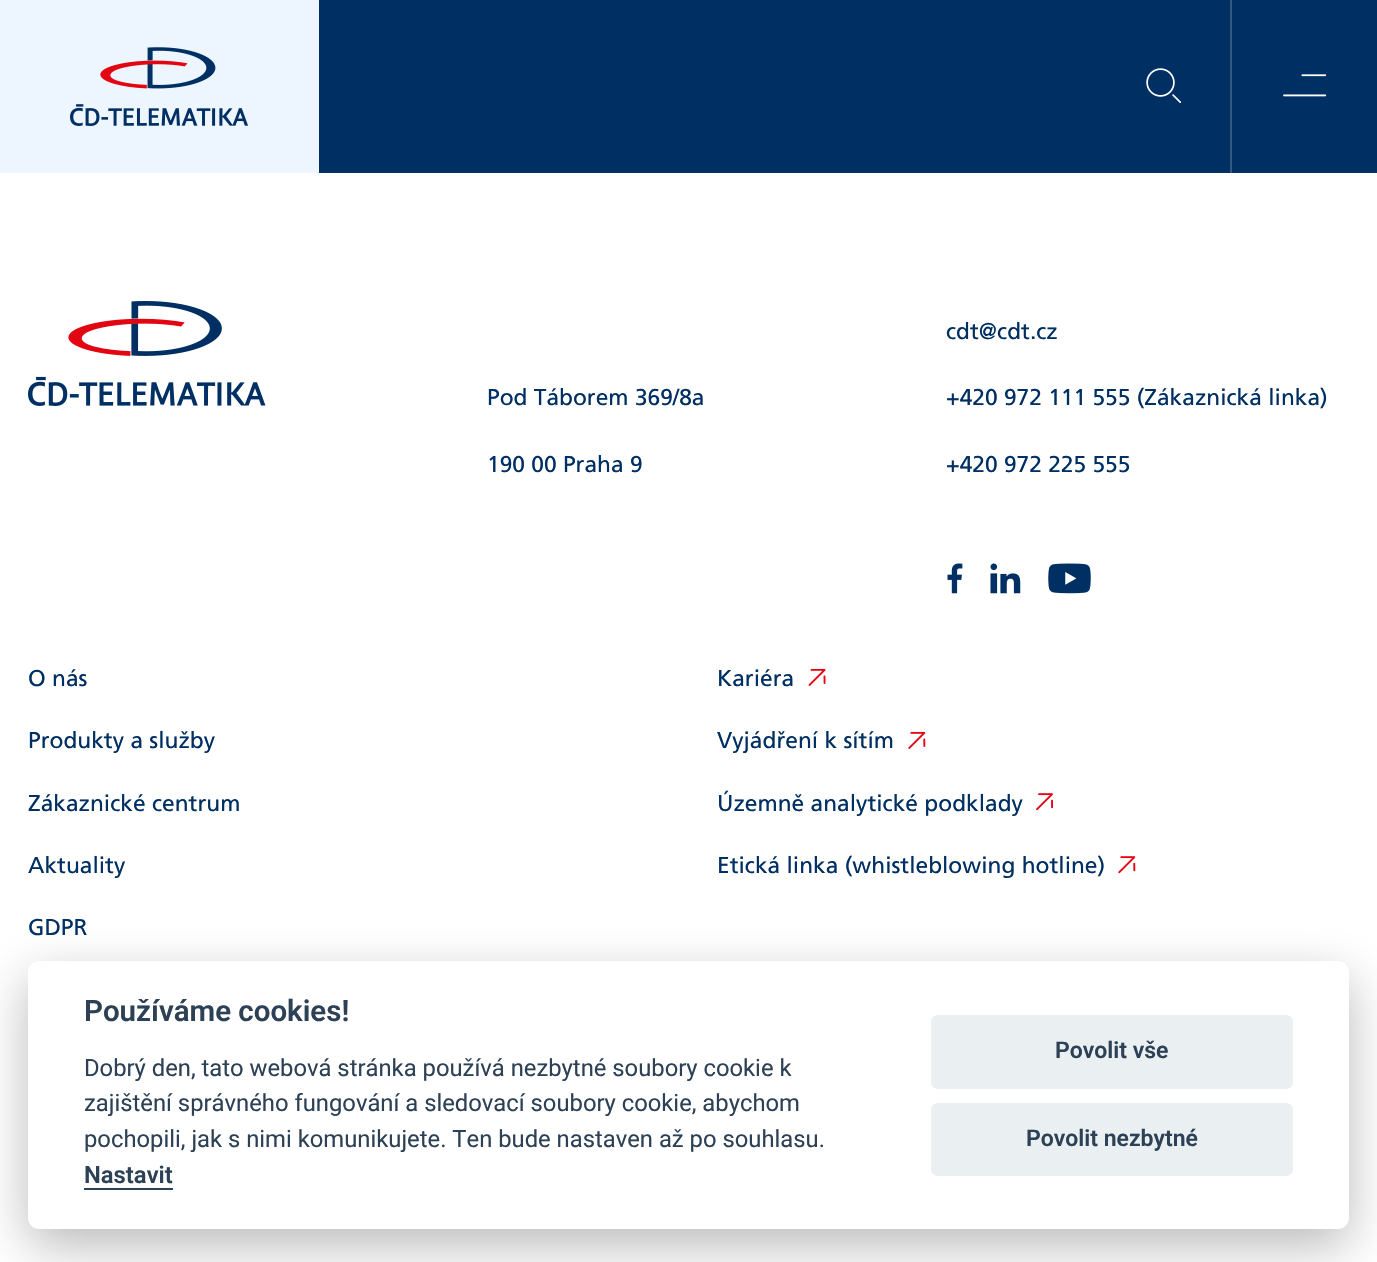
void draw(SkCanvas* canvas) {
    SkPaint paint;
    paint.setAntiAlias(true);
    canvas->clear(0xFFFFFFFF);
    paint.setColor(0xFF003063);
    canvas->drawRect(SkRect::MakeXYWH(319, 0, 1058, 173), paint);
    paint.setColor(0xFFEDF5FE);
    canvas->drawRect(SkRect::MakeXYWH(0, 0, 319, 173), paint);
    canvas->drawImageRect(SkImages::DeferredFromEncodedData(SkData::MakeFromFileName("img1.png")), SkRect::MakeXYWH(70, 47, 178, 79), SkSamplingOptions());
    canvas->drawImageRect(SkImages::DeferredFromEncodedData(SkData::MakeFromFileName("img2.png")), SkRect::MakeXYWH(1146, 68, 35, 35), SkSamplingOptions());
    paint.setColor(0xFF335982);
    canvas->drawRect(SkRect::MakeXYWH(1230, 0, 2, 173), paint);
    canvas->drawImageRect(SkImages::DeferredFromEncodedData(SkData::MakeFromFileName("img3.png")), SkRect::MakeXYWH(1283, 74, 44, 23), SkSamplingOptions());
    canvas->drawImageRect(SkImages::DeferredFromEncodedData(SkData::MakeFromFileName("img4.png")), SkRect::MakeXYWH(28, 301, 238, 105), SkSamplingOptions());
    SkFont font1(fontMgr->matchFamilyStyle("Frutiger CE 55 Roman", SkFontStyle::Normal()), 22.75f);
    font1.setSubpixel(true);
    paint.setColor(0xFF003063);
    canvas->drawString("Pod Táborem 369/8a", 487, 405, font1, paint);
    canvas->drawString("190 00 Praha 9", 487, 472, font1, paint);
    canvas->drawString("cdt@cdt.cz", 946, 339, font1, paint);
    canvas->drawString("+420 972 111 555 (Zákaznická linka)", 946, 405, font1, paint);
    canvas->drawString("+420 972 225 555", 946, 472, font1, paint);
    canvas->drawImageRect(SkImages::DeferredFromEncodedData(SkData::MakeFromFileName("img5.png")), SkRect::MakeXYWH(947, 563, 16, 31), SkSamplingOptions());
    canvas->drawImageRect(SkImages::DeferredFromEncodedData(SkData::MakeFromFileName("img6.png")), SkRect::MakeXYWH(990, 563, 31, 31), SkSamplingOptions());
    canvas->drawImageRect(SkImages::DeferredFromEncodedData(SkData::MakeFromFileName("img7.png")), SkRect::MakeXYWH(1048, 563, 43, 31), SkSamplingOptions());
    canvas->drawString("O nás", 28, 686, font1, paint);
    canvas->drawString("Produkty a služby", 28, 748, font1, paint);
    canvas->drawString("Zákaznické centrum", 28, 811, font1, paint);
    canvas->drawString("Aktuality", 28, 873, font1, paint);
    canvas->drawString("GDPR", 28, 935, font1, paint);
    canvas->drawString("Kariéra", 717, 686, font1, paint);
    canvas->drawImageRect(SkImages::DeferredFromEncodedData(SkData::MakeFromFileName("img8.png")), SkRect::MakeXYWH(808, 668, 18, 18), SkSamplingOptions());
    canvas->drawString("Vyjádření k sítím", 717, 748, font1, paint);
    canvas->drawImageRect(SkImages::DeferredFromEncodedData(SkData::MakeFromFileName("img9.png")), SkRect::MakeXYWH(908, 731, 18, 18), SkSamplingOptions());
    canvas->drawString("Územně analytické podklady", 717, 811, font1, paint);
    canvas->drawImageRect(SkImages::DeferredFromEncodedData(SkData::MakeFromFileName("img10.png")), SkRect::MakeXYWH(1036, 793, 17, 18), SkSamplingOptions());
    canvas->drawString("Etická linka (whistleblowing hotline)", 717, 873, font1, paint);
    canvas->drawImageRect(SkImages::DeferredFromEncodedData(SkData::MakeFromFileName("img11.png")), SkRect::MakeXYWH(1118, 856, 18, 18), SkSamplingOptions());
    paint.setColor(0x47020203);
    paint.setMaskFilter(SkMaskFilter::MakeBlur(kNormal_SkBlurStyle, 26));
    canvas->drawRoundRect(SkRect::MakeXYWH(28, 978, 1321, 268), 11, 11, paint);
    paint.setMaskFilter(nullptr);
    paint.setColor(0xFFFFFFFF);
    canvas->drawRoundRect(SkRect::MakeXYWH(28, 961, 1321, 268), 11, 11, paint);
    SkFont font2(fontMgr->matchFamilyStyle("Roboto", SkFontStyle(600, SkFontStyle::kNormal_Width, SkFontStyle::kUpright_Slant)), 29.5f);
    font2.setSubpixel(true);
    paint.setColor(0xFF2D4156);
    canvas->drawString("Používáme cookies!", 84, 1021, font2, paint);
    SkFont font3(fontMgr->matchFamilyStyle("Roboto", SkFontStyle::Normal()), 23.8f);
    font3.setSubpixel(true);
    canvas->drawString("Dobrý den, tato webová stránka používá nezbytné soubory cookie k", 84, 1076, font3, paint);
    canvas->drawString("zajištění správného fungování a sledovací soubory cookie, abychom", 84, 1111, font3, paint);
    canvas->drawString("pochopili, jak s nimi komunikujete. Ten bude nastaven až po souhlasu.", 84, 1147, font3, paint);
    SkFont font4(fontMgr->matchFamilyStyle("Roboto", SkFontStyle(600, SkFontStyle::kNormal_Width, SkFontStyle::kUpright_Slant)), 23.8f);
    font4.setSubpixel(true);
    canvas->drawString("Nastavit", 84, 1183, font4, paint);
    canvas->drawRect(SkRect::MakeXYWH(84, 1188, 89, 2), paint);
    paint.setColor(0xFFEAEFF2);
    canvas->drawRoundRect(SkRect::MakeXYWH(931, 1015, 362, 74), 7, 7, paint);
    SkFont font5(fontMgr->matchFamilyStyle("Roboto", SkFontStyle(600, SkFontStyle::kNormal_Width, SkFontStyle::kUpright_Slant)), 23);
    font5.setSubpixel(true);
    paint.setColor(0xFF2D4156);
    canvas->drawString("Povolit vše", 1055, 1058, font5, paint);
    paint.setColor(0xFFEAEFF2);
    canvas->drawRoundRect(SkRect::MakeXYWH(931, 1103, 362, 73), 7, 7, paint);
    paint.setColor(0xFF2D4156);
    canvas->drawString("Povolit nezbytné", 1026, 1146, font5, paint);
}
